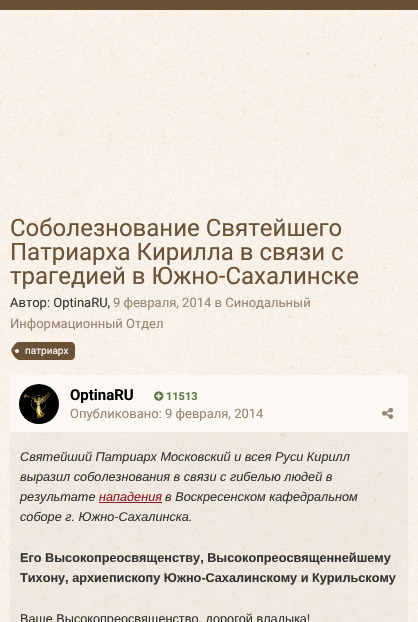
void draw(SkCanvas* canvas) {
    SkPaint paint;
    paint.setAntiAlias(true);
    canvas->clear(0xFFFFFFFF);
    canvas->drawImageRect(SkImages::DeferredFromEncodedData(SkData::MakeFromFileName("img1.png")), SkRect::MakeXYWH(0, 141, 418, 481), SkSamplingOptions());
    paint.setColor(0xFF6B5237);
    canvas->drawRect(SkRect::MakeXYWH(0, 0, 418, 10), paint);
    canvas->drawImageRect(SkImages::DeferredFromEncodedData(SkData::MakeFromFileName("img2.png")), SkRect::MakeXYWH(0, 10, 418, 131), SkSamplingOptions());
    SkFont font1(fontMgr->matchFamilyStyle("Roboto", SkFontStyle::Normal()), 24);
    font1.setSubpixel(true);
    canvas->drawString("Соболезнование Святейшего", 10, 236, font1, paint);
    canvas->drawString("Патриарха Кирилла в связи с", 10, 260, font1, paint);
    canvas->drawString("трагедией в Южно-Сахалинске", 10, 284, font1, paint);
    SkFont font2(fontMgr->matchFamilyStyle("Roboto", SkFontStyle::Normal()), 13);
    font2.setSubpixel(true);
    paint.setColor(0xFF333333);
    canvas->drawString("Автор: OptinaRU,", 10, 307, font2, paint);
    paint.setColor(0xFF968471);
    canvas->drawString("9 февраля, 2014 в Синодальный", 113, 307, font2, paint);
    canvas->drawString("Информационный Отдел", 10, 328, font2, paint);
    paint.setColor(0xFF6B5237);
    canvas->drawPath(SkPathBuilder().moveTo(18, 342).lineTo(71, 342).cubicTo(73, 342, 75, 344, 75, 346).lineTo(75, 356).cubicTo(75, 358, 73, 360, 71, 360).lineTo(18, 360).close().detach(), paint);
    canvas->drawPath(SkPathBuilder().moveTo(19, 359.5f).cubicTo(15, 359.5f, 12.5f, 353.5f, 11, 350.5f).lineTo(19, 350.5f).close().detach(), paint);
    canvas->drawPath(SkPathBuilder().moveTo(19, 342).lineTo(19, 350.5f).lineTo(11, 350.5f).lineTo(11, 350).cubicTo(13, 347, 15, 342, 19, 342).close().detach(), paint);
    SkFont font3(fontMgr->matchFamilyStyle("Roboto", SkFontStyle::Normal()), 10);
    font3.setSubpixel(true);
    paint.setColor(0xFFFFFFFF);
    canvas->drawString("патриарх", 25, 354, font3, paint);
    canvas->drawCircle(17, 351, 2, paint);
    paint.setColor(0x0D6B5237);
    canvas->drawRect(SkRect::MakeXYWH(10, 432, 398, 190), paint);
    paint.setColor(0xFFFCF9F5);
    canvas->drawRect(SkRect::MakeXYWH(10, 375, 398, 57), paint);
    paint.setColor(0xFFFFFFFF);
    canvas->drawCircle(39, 404, 20, paint);
    canvas->drawImageRect(SkImages::DeferredFromEncodedData(SkData::MakeFromFileName("img3.png")), SkRect::MakeXYWH(19, 384, 40, 40), SkSamplingOptions());
    SkFont font4(fontMgr->matchFamilyStyle("Roboto", SkFontStyle::Bold()), 15);
    font4.setSubpixel(true);
    paint.setColor(0xFF000000);
    canvas->drawString("OptinaRU", 70, 400, font4, paint);
    canvas->drawImageRect(SkImages::DeferredFromEncodedData(SkData::MakeFromFileName("img4.png")), SkRect::MakeXYWH(154, 391, 10, 10), SkSamplingOptions());
    SkFont font5(fontMgr->matchFamilyStyle("Roboto", SkFontStyle::Bold()), 11);
    font5.setSubpixel(true);
    paint.setColor(0xFF5F7A47);
    canvas->drawString("11 513", 166, 400, font5, paint);
    paint.setColor(0xFF968471);
    canvas->drawString("Опубликовано: 9 февраля, 2014", 70, 418, font2, paint);
    canvas->drawImageRect(SkImages::DeferredFromEncodedData(SkData::MakeFromFileName("img5.png")), SkRect::MakeXYWH(382, 407, 12, 12), SkSamplingOptions());
    SkFont font6(fontMgr->matchFamilyStyle("Liberation Sans", SkFontStyle::Italic()), 12.7f);
    font6.setSubpixel(true);
    paint.setColor(0xFF333333);
    canvas->drawString("Святейший Патриарх Московский и всея Руси Кирилл", 20, 461, font6, paint);
    canvas->drawString("выразил соболезнования в связи с гибелью людей в", 20, 481, font6, paint);
    canvas->drawString("результате", 20, 501, font6, paint);
    paint.setColor(0xFF8D1D21);
    canvas->drawRect(SkRect::MakeXYWH(99, 502, 63, 1), paint);
    canvas->drawString("нападения", 99, 501, font6, paint);
    paint.setColor(0xFF333333);
    canvas->drawString("в Воскресенском кафедральном", 165, 501, font6, paint);
    canvas->drawString("соборе г. Южно-Сахалинска.", 20, 521, font6, paint);
    SkFont font7(fontMgr->matchFamilyStyle("Liberation Sans", SkFontStyle::Bold()), 12.7f);
    font7.setSubpixel(true);
    canvas->drawString("Его Высокопреосвященству, Высокопреосвященнейшему", 20, 562, font7, paint);
    canvas->drawString("Тихону, архиепископу Южно-Сахалинскому и Курильскому", 20, 582, font7, paint);
    SkFont font8(fontMgr->matchFamilyStyle("Liberation Sans", SkFontStyle::Normal()), 12.7f);
    font8.setSubpixel(true);
    canvas->drawString("Ваше Высокопреосвященство, дорогой владыка!", 20, 623, font8, paint);
}
